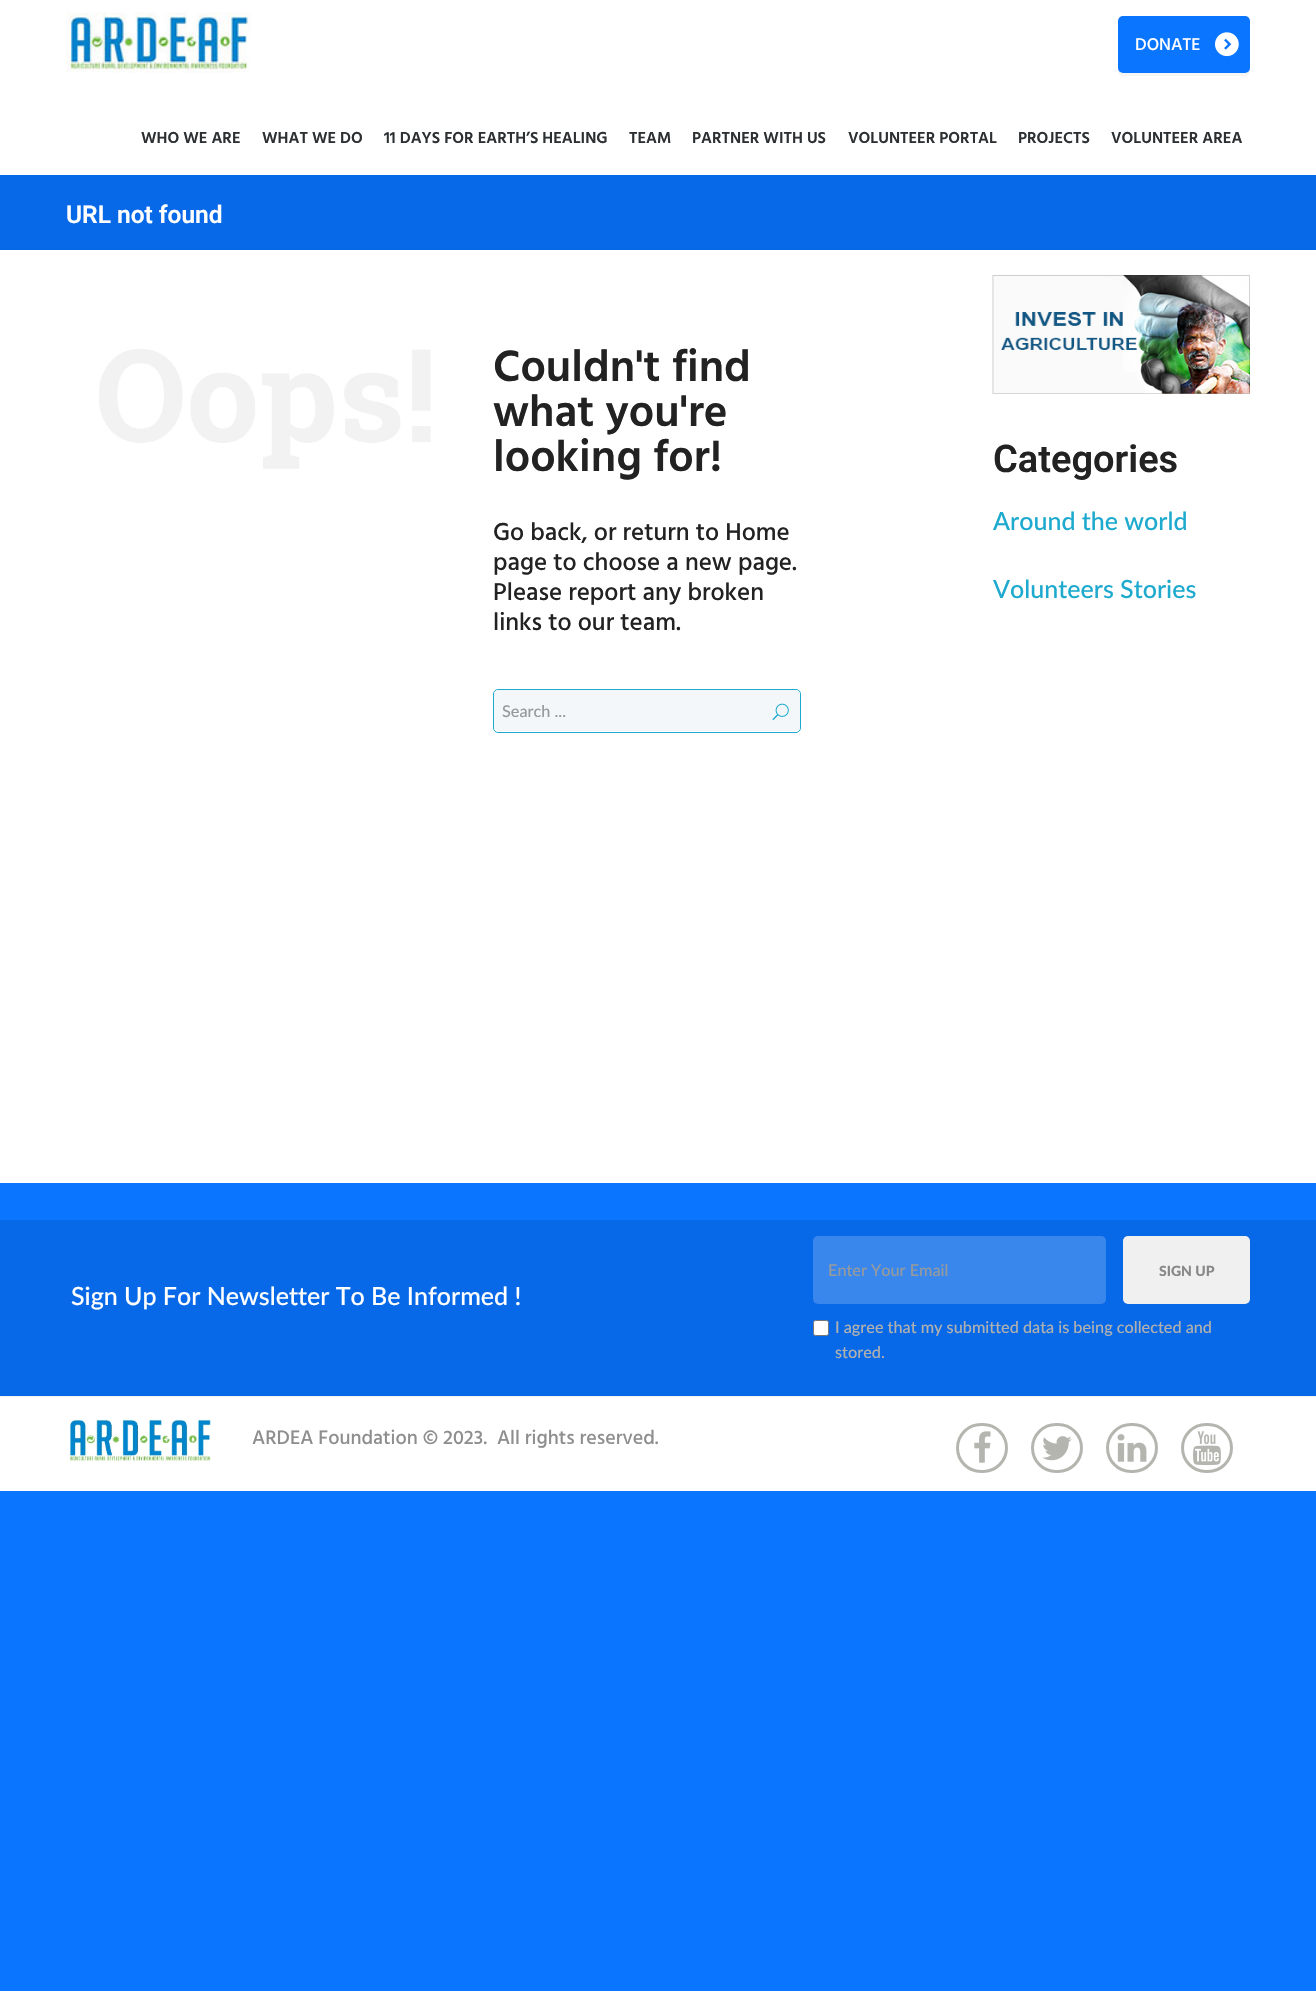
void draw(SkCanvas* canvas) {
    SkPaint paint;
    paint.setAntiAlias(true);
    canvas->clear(0xFF0A75FF);
    paint.setColor(0xFFFFFFFF);
    canvas->drawRect(SkRect::MakeXYWH(0, 0, 1316, 1491), paint);
    canvas->drawImageRect(SkImages::DeferredFromEncodedData(SkData::MakeFromFileName("img1.png")), SkRect::MakeXYWH(66, 12, 185, 61), SkSamplingOptions());
    paint.setColor(0xFFF5F5F5);
    canvas->drawPath(SkPathBuilder().moveTo(1118, 70).lineTo(1118, 71).cubicTo(1118, 74, 1120, 76, 1123, 76).lineTo(1245, 76).cubicTo(1248, 76, 1250, 74, 1250, 71).lineTo(1250, 68).cubicTo(1250, 70, 1248, 72, 1245, 72).lineTo(1122, 72).cubicTo(1121, 72, 1119, 71, 1118, 70).close().detach(), paint);
    paint.setColor(0xFF0A75FF);
    canvas->drawRoundRect(SkRect::MakeXYWH(1118, 16, 132, 57), 5, 5, paint);
    SkFont font1(fontMgr->matchFamilyStyle("Hind", SkFontStyle(500, SkFontStyle::kNormal_Width, SkFontStyle::kUpright_Slant)), 17.5f);
    font1.setSubpixel(true);
    paint.setColor(0xFFFFFFFF);
    canvas->drawString("DONATE", 1135, 50, font1, paint);
    canvas->drawImageRect(SkImages::DeferredFromEncodedData(SkData::MakeFromFileName("img2.png")), SkRect::MakeXYWH(1215, 32, 24, 25), SkSamplingOptions());
    SkFont font2(fontMgr->matchFamilyStyle("Hind", SkFontStyle(600, SkFontStyle::kNormal_Width, SkFontStyle::kUpright_Slant)), 16.25f);
    font2.setSubpixel(true);
    paint.setColor(0xFF2C3032);
    canvas->drawString("WHO WE ARE", 141, 143, font2, paint);
    canvas->drawString("WHAT WE DO", 262, 143, font2, paint);
    canvas->drawString("11 DAYS FOR EARTH’S HEALING", 384, 143, font2, paint);
    canvas->drawString("TEAM", 629, 143, font2, paint);
    canvas->drawString("PARTNER WITH US", 692, 143, font2, paint);
    canvas->drawString("VOLUNTEER PORTAL", 848, 143, font2, paint);
    canvas->drawString("PROJECTS", 1018, 143, font2, paint);
    canvas->drawString("VOLUNTEER AREA", 1111, 143, font2, paint);
    paint.setColor(0xFF0769E7);
    canvas->drawRect(SkRect::MakeXYWH(0, 175, 1316, 75), paint);
    SkFont font3(fontMgr->matchFamilyStyle("Roboto", SkFontStyle(600, SkFontStyle::kNormal_Width, SkFontStyle::kUpright_Slant)), 24.5f);
    font3.setSubpixel(true);
    paint.setColor(0xFFFFFFFF);
    canvas->drawString("URL not found", 66, 223, font3, paint);
    canvas->drawImageRect(SkImages::DeferredFromEncodedData(SkData::MakeFromFileName("img3.png")), SkRect::MakeXYWH(99, 349, 332, 120), SkSamplingOptions());
    SkFont font4(fontMgr->matchFamilyStyle("Hind", SkFontStyle(600, SkFontStyle::kNormal_Width, SkFontStyle::kUpright_Slant)), 45);
    font4.setSubpixel(true);
    paint.setColor(0xFF222222);
    canvas->drawString("Couldn't find", 493, 381, font4, paint);
    canvas->drawString("what you're", 493, 426, font4, paint);
    canvas->drawString("looking for!", 493, 471, font4, paint);
    SkFont font5(fontMgr->matchFamilyStyle("Hind", SkFontStyle(500, SkFontStyle::kNormal_Width, SkFontStyle::kUpright_Slant)), 25);
    font5.setSubpixel(true);
    canvas->drawString("Go back, or return to Home", 493, 540, font5, paint);
    canvas->drawString("page to choose a new page.", 493, 570, font5, paint);
    canvas->drawString("Please report any broken", 493, 600, font5, paint);
    canvas->drawString("links to our team.", 493, 630, font5, paint);
    paint.setStyle(SkPaint::kStroke_Style);
    paint.setStrokeWidth(1);
    paint.setColor(0xFF1EAACE);
    canvas->drawRoundRect(SkRect::MakeXYWH(493.5f, 689.5f, 307, 43), 4.5f, 4.5f, paint);
    paint.setStyle(SkPaint::kFill_Style);
    paint.setColor(0xFFF4F7F9);
    canvas->drawRoundRect(SkRect::MakeXYWH(494, 690, 306, 41), 5, 5, paint);
    SkFont font6(fontMgr->matchFamilyStyle("Lato", SkFontStyle(500, SkFontStyle::kNormal_Width, SkFontStyle::kUpright_Slant)), 16.25f);
    font6.setSubpixel(true);
    paint.setColor(0xFF959A9E);
    canvas->drawString("Search ...", 502, 717, font6, paint);
    canvas->drawImageRect(SkImages::DeferredFromEncodedData(SkData::MakeFromFileName("img4.png")), SkRect::MakeXYWH(772, 703, 17, 17), SkSamplingOptions());
    canvas->drawImageRect(SkImages::DeferredFromEncodedData(SkData::MakeFromFileName("img5.png")), SkRect::MakeXYWH(992, 275, 258, 119), SkSamplingOptions());
    SkFont font7(fontMgr->matchFamilyStyle("Roboto", SkFontStyle(600, SkFontStyle::kNormal_Width, SkFontStyle::kUpright_Slant)), 38);
    font7.setSubpixel(true);
    paint.setColor(0xFF222222);
    canvas->drawString("Categories", 993, 472, font7, paint);
    SkFont font8(fontMgr->matchFamilyStyle("Lato", SkFontStyle(500, SkFontStyle::kNormal_Width, SkFontStyle::kUpright_Slant)), 25);
    font8.setSubpixel(true);
    paint.setColor(0xFF1EAACE);
    canvas->drawString("Around the world", 993, 530, font8, paint);
    canvas->drawString("Volunteers Stories", 993, 598, font8, paint);
    paint.setColor(0xFF0A75FF);
    canvas->drawRect(SkRect::MakeXYWH(0, 1183, 1316, 37), paint);
    paint.setColor(0xFF0769E7);
    canvas->drawRect(SkRect::MakeXYWH(0, 1220, 1316, 176), paint);
    paint.setColor(0xFFFFFFFF);
    canvas->drawString("Sign Up For Newsletter To Be Informed !", 71, 1305, font8, paint);
    paint.setColor(0xFF3987EC);
    canvas->drawRoundRect(SkRect::MakeXYWH(813, 1236, 293, 68), 5, 5, paint);
    paint.setColor(0xFF959A9E);
    canvas->drawString("Enter Your Email", 828, 1276, font6, paint);
    paint.setColor(0xFFF0F0F0);
    canvas->drawRoundRect(SkRect::MakeXYWH(1123, 1236, 127, 68), 5, 5, paint);
    SkFont font9(fontMgr->matchFamilyStyle("Lato", SkFontStyle(900, SkFontStyle::kNormal_Width, SkFontStyle::kUpright_Slant)), 14);
    font9.setSubpixel(true);
    paint.setColor(0xFF888888);
    canvas->drawString("SIGN UP", 1159, 1276, font9, paint);
    paint.setColor(0xFFFFFFFF);
    canvas->drawRoundRect(SkRect::MakeXYWH(813.5f, 1320.5f, 15, 15), 2, 2, paint);
    paint.setStyle(SkPaint::kStroke_Style);
    paint.setColor(0xFF767676);
    canvas->drawRoundRect(SkRect::MakeXYWH(813.5f, 1320.5f, 15, 15), 2, 2, paint);
    paint.setStyle(SkPaint::kFill_Style);
    paint.setColor(0xFFB0B0B0);
    canvas->drawString("I agree that my submitted data is being collected and", 835, 1333, font6, paint);
    canvas->drawString("stored.", 835, 1358, font6, paint);
    paint.setColor(0xFFEFEFEF);
    canvas->drawRect(SkRect::MakeXYWH(0, 1396, 1316, 1), paint);
    canvas->drawImageRect(SkImages::DeferredFromEncodedData(SkData::MakeFromFileName("img6.png")), SkRect::MakeXYWH(69, 1419, 142, 44), SkSamplingOptions());
    SkFont font10(fontMgr->matchFamilyStyle("Hind", SkFontStyle(500, SkFontStyle::kNormal_Width, SkFontStyle::kUpright_Slant)), 20);
    font10.setSubpixel(true);
    paint.setColor(0xFF8E8E8E);
    canvas->drawString("ARDEA Foundation © 2023.  All rights reserved.", 252, 1444, font10, paint);
    paint.setStyle(SkPaint::kStroke_Style);
    paint.setStrokeWidth(3);
    paint.setColor(0xFFB5B5B0);
    canvas->drawRoundRect(SkRect::MakeXYWH(957.5f, 1424.5f, 49, 47), 23.5f, 23.5f, paint);
    canvas->drawImageRect(SkImages::DeferredFromEncodedData(SkData::MakeFromFileName("img7.png")), SkRect::MakeXYWH(974, 1431, 17, 32), SkSamplingOptions());
    canvas->drawRoundRect(SkRect::MakeXYWH(1032.5f, 1424.5f, 49, 47), 23.5f, 23.5f, paint);
    canvas->drawImageRect(SkImages::DeferredFromEncodedData(SkData::MakeFromFileName("img8.png")), SkRect::MakeXYWH(1042, 1436, 30, 25), SkSamplingOptions());
    canvas->drawRoundRect(SkRect::MakeXYWH(1107.5f, 1424.5f, 49, 47), 23.5f, 23.5f, paint);
    canvas->drawImageRect(SkImages::DeferredFromEncodedData(SkData::MakeFromFileName("img9.png")), SkRect::MakeXYWH(1117, 1434, 30, 28), SkSamplingOptions());
    canvas->drawRoundRect(SkRect::MakeXYWH(1182.5f, 1424.5f, 49, 47), 23.5f, 23.5f, paint);
    canvas->drawImageRect(SkImages::DeferredFromEncodedData(SkData::MakeFromFileName("img10.png")), SkRect::MakeXYWH(1193, 1431, 28, 35), SkSamplingOptions());
}
